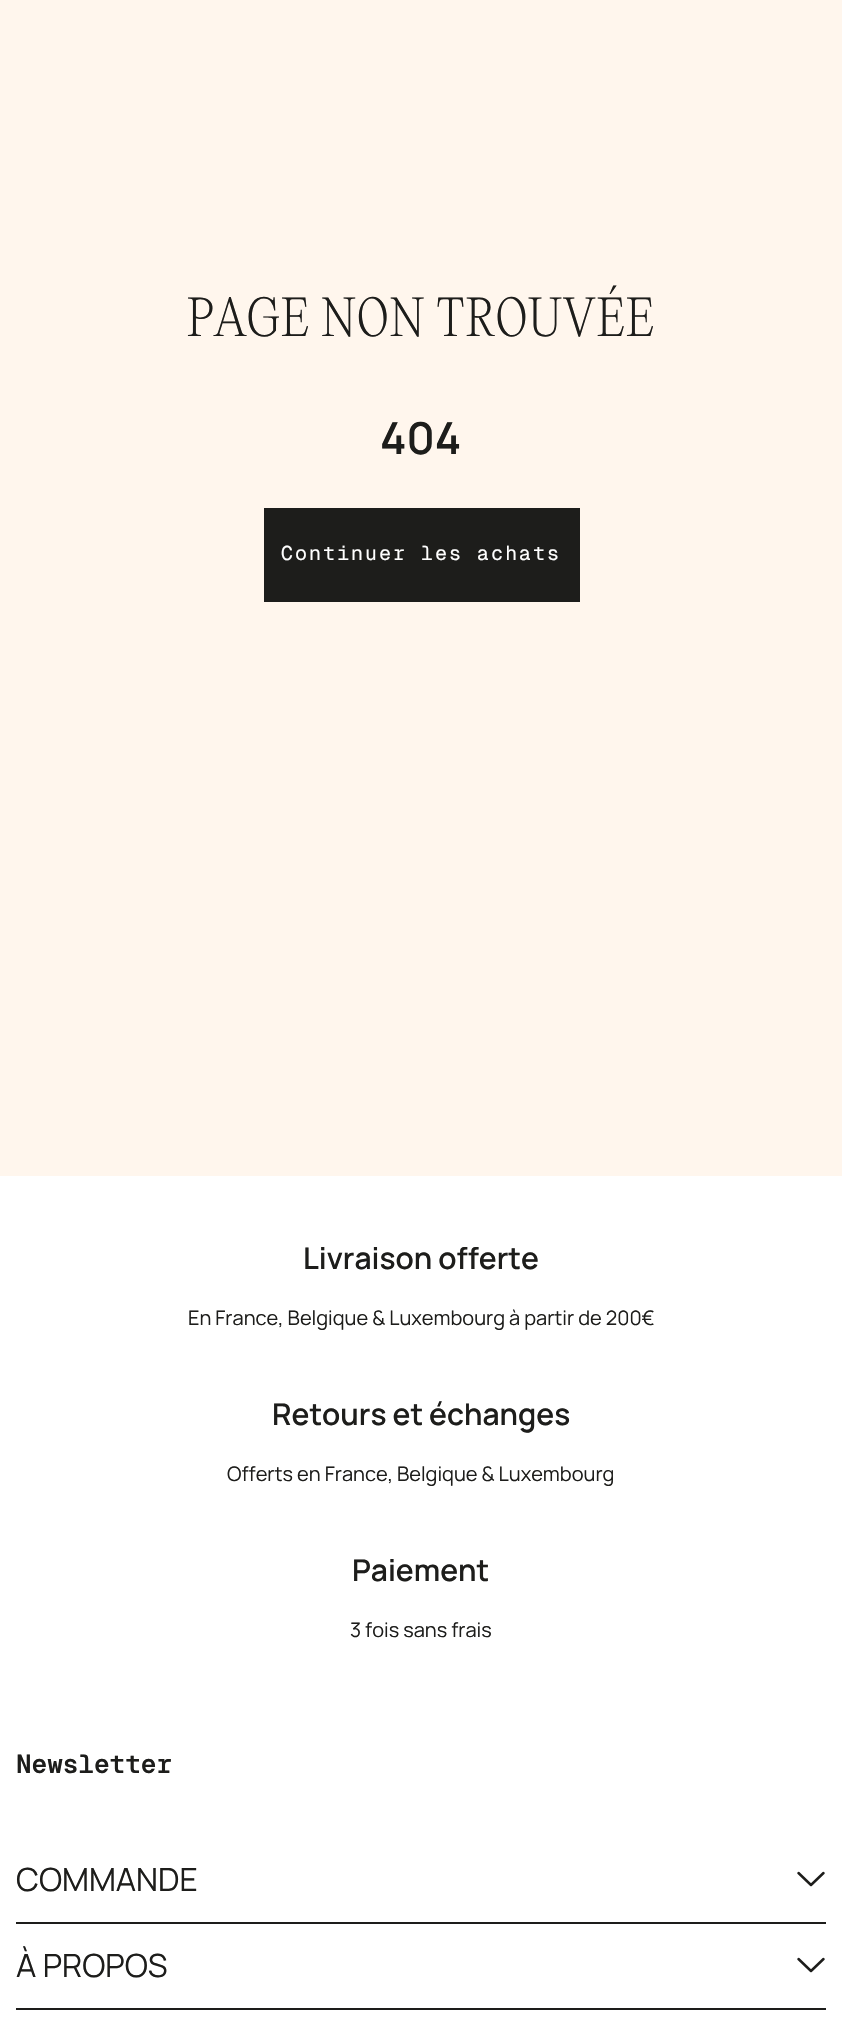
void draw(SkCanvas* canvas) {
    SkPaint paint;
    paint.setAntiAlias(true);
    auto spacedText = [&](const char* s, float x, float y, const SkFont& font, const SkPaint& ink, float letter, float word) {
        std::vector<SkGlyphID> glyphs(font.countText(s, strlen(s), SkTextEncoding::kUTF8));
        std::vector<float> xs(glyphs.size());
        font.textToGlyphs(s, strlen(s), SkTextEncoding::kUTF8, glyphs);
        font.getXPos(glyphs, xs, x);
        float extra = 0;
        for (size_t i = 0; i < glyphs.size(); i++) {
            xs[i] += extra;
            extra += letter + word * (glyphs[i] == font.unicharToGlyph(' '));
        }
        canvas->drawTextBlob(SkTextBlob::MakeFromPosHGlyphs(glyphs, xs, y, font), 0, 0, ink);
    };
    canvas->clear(0xFFFFF6ED);
    SkFont font1(fontMgr->matchFamilyStyle("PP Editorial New", SkFontStyle(200, SkFontStyle::kNormal_Width, SkFontStyle::kUpright_Slant)), 48);
    font1.setSubpixel(true);
    paint.setColor(0xFF1D1D1B);
    spacedText("PAGE NON TROUVÉE", 187, 336, font1, paint, 1.25f, 0);
    SkFont font2(fontMgr->matchFamilyStyle("Manrope", SkFontStyle(600, SkFontStyle::kNormal_Width, SkFontStyle::kUpright_Slant)), 44);
    font2.setSubpixel(true);
    canvas->drawString("404", 380, 454, font2, paint);
    canvas->drawRect(SkRect::MakeXYWH(264, 508, 316, 94), paint);
    SkFont font3(fontMgr->matchFamilyStyle("Geist Mono", SkFontStyle::Normal()), 20);
    font3.setSubpixel(true);
    paint.setColor(0xFFFFFFFF);
    spacedText("Continuer les achats", 281, 560, font3, paint, 2, 0);
    canvas->drawRect(SkRect::MakeXYWH(0, 1176, 842, 865), paint);
    SkFont font4(fontMgr->matchFamilyStyle("Manrope", SkFontStyle(600, SkFontStyle::kNormal_Width, SkFontStyle::kUpright_Slant)), 30);
    font4.setSubpixel(true);
    paint.setColor(0xFF1D1D1B);
    canvas->drawString("Livraison offerte", 303, 1269, font4, paint);
    SkFont font5(fontMgr->matchFamilyStyle("Manrope", SkFontStyle::Normal()), 20);
    font5.setSubpixel(true);
    canvas->drawString("En France, Belgique & Luxembourg à partir de 200€", 188, 1325, font5, paint);
    canvas->drawString("Retours et échanges", 272, 1425, font4, paint);
    canvas->drawString("Offerts en France, Belgique & Luxembourg", 227, 1481, font5, paint);
    canvas->drawString("Paiement", 352, 1581, font4, paint);
    canvas->drawString("3 fois sans frais", 350, 1637, font5, paint);
    SkFont font6(fontMgr->matchFamilyStyle("Geist Mono", SkFontStyle(600, SkFontStyle::kNormal_Width, SkFontStyle::kUpright_Slant)), 26);
    font6.setSubpixel(true);
    canvas->drawString("Newsletter", 16, 1773, font6, paint);
    canvas->drawRect(SkRect::MakeXYWH(16, 1922, 810, 2), paint);
    SkFont font7(fontMgr->matchFamilyStyle("Manrope", SkFontStyle::Normal()), 32);
    font7.setSubpixel(true);
    canvas->drawString("COMMANDE", 16, 1891, font7, paint);
    paint.setStyle(SkPaint::kStroke_Style);
    paint.setStrokeWidth(2.5f);
    paint.setStrokeCap(SkPaint::kRound_Cap);
    paint.setStrokeJoin(SkPaint::kRound_Join);
    canvas->drawPath(SkPathBuilder().moveTo(823.5f, 1873).lineTo(811, 1885).lineTo(798.5f, 1873).detach(), paint);
    paint.setStyle(SkPaint::kFill_Style);
    canvas->drawRect(SkRect::MakeXYWH(16, 2008, 810, 2), paint);
    canvas->drawString("À PROPOS", 16, 1977, font7, paint);
    paint.setStyle(SkPaint::kStroke_Style);
    canvas->drawPath(SkPathBuilder().moveTo(823.5f, 1959).lineTo(811, 1971).lineTo(798.5f, 1959).detach(), paint);
}
